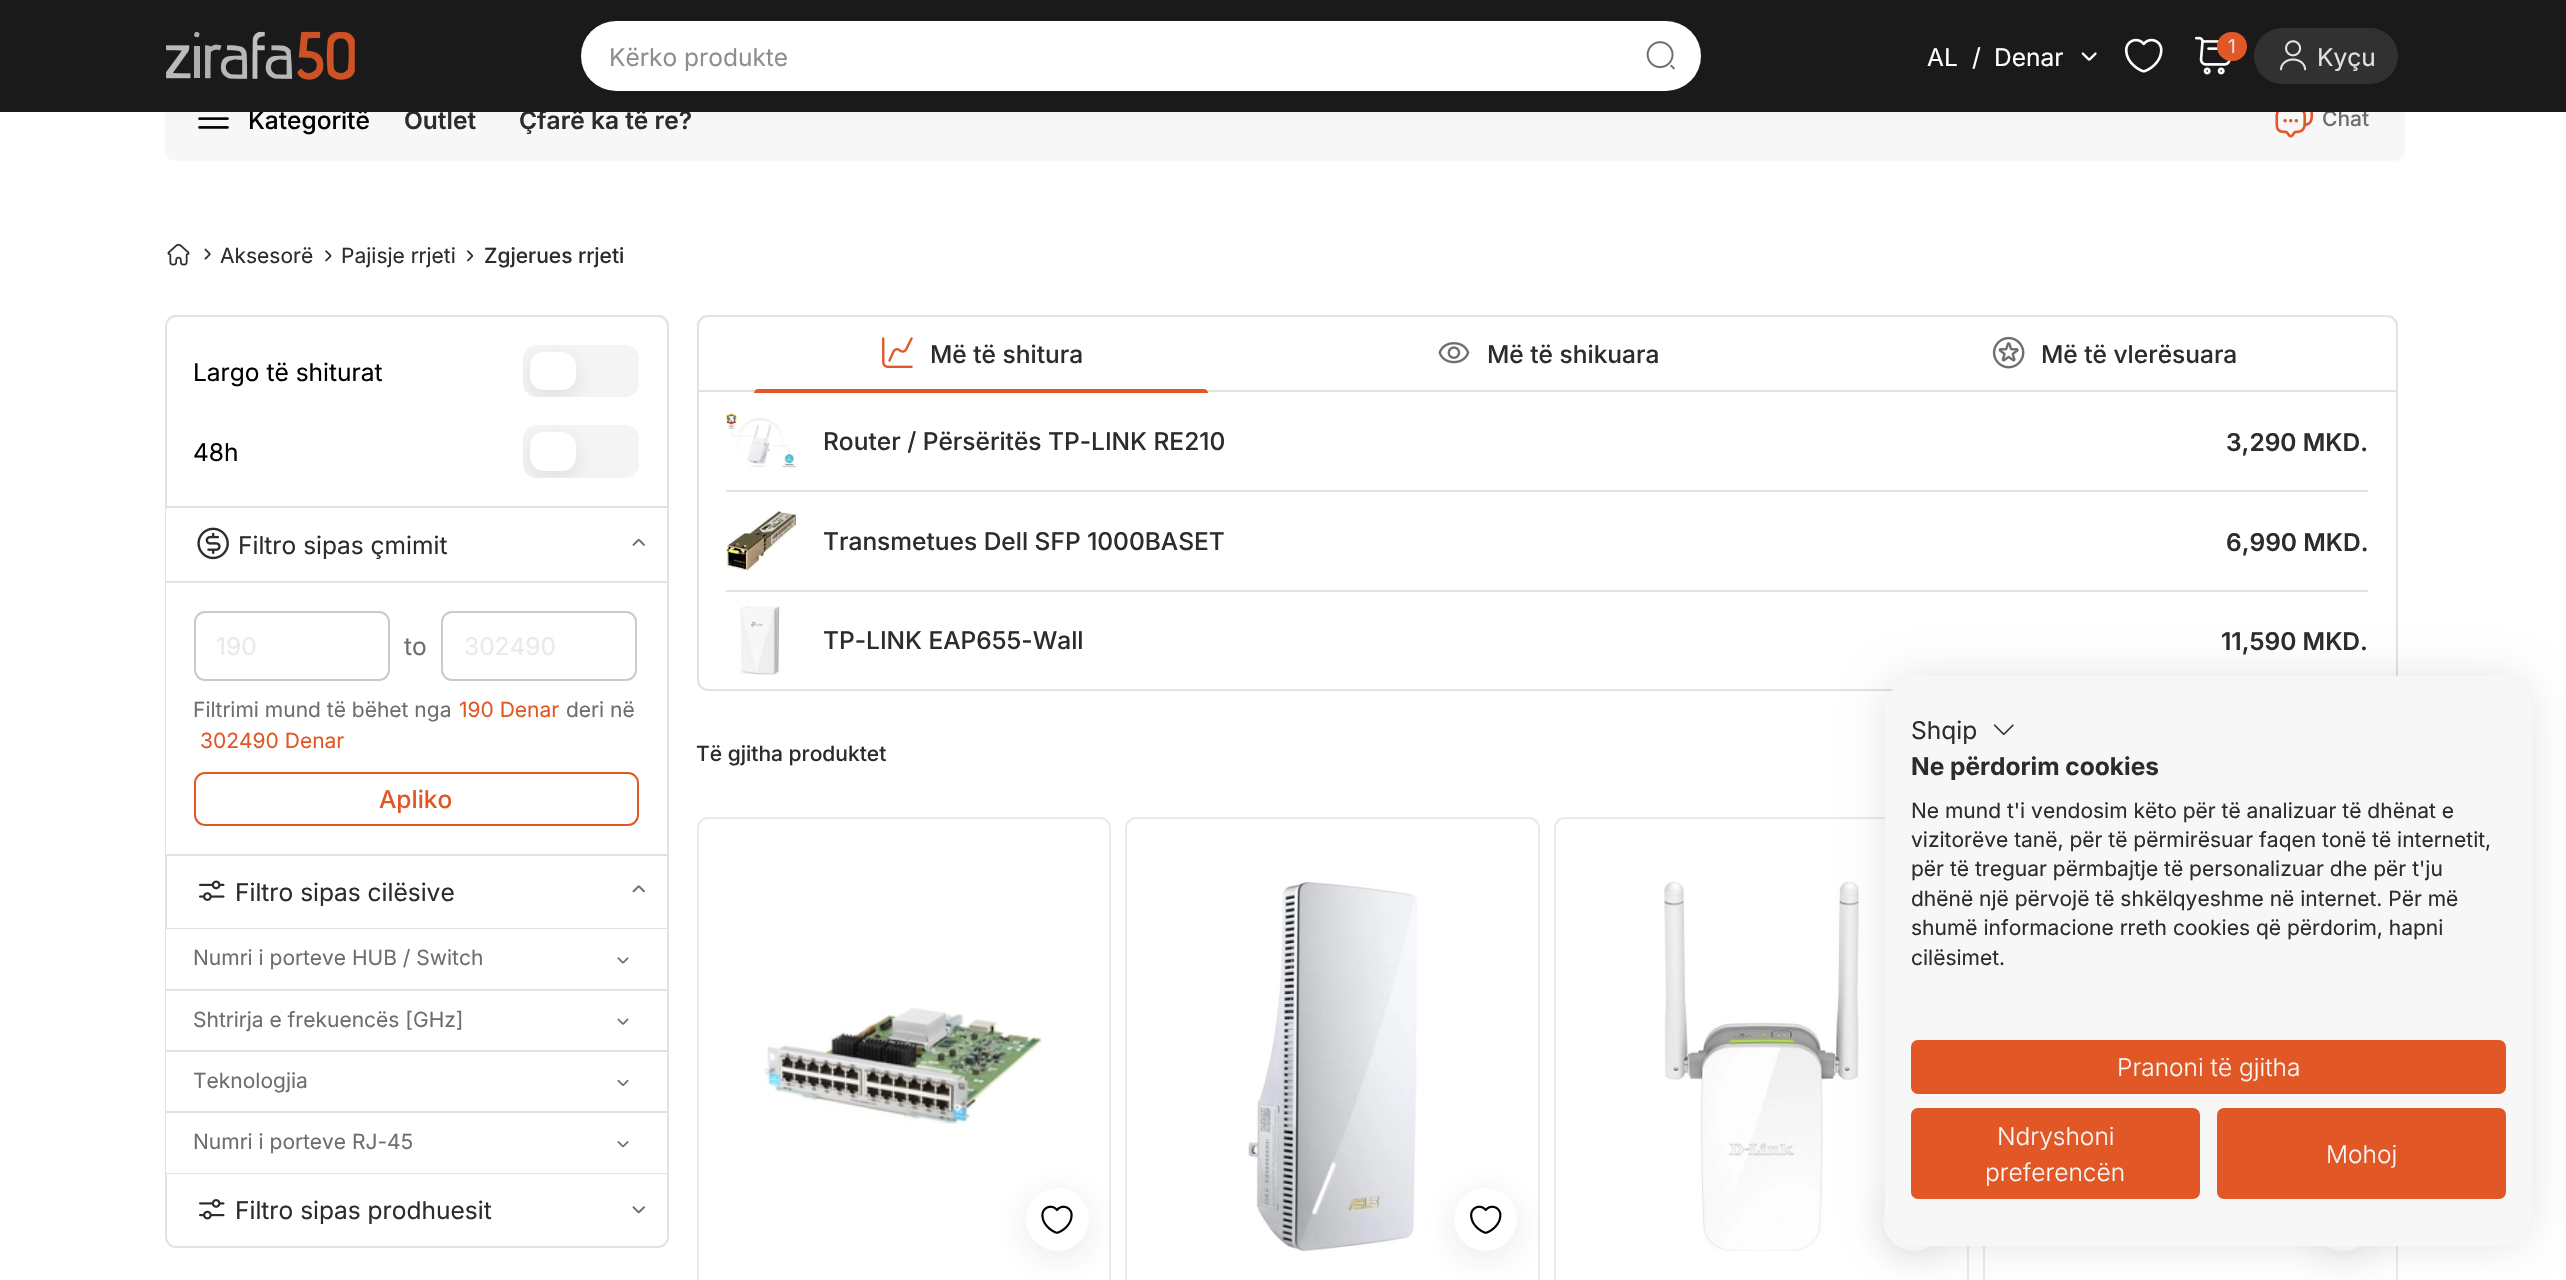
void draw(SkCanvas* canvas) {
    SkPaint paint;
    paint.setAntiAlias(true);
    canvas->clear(0xFFFFFFFF);
    paint.setColor(0xFFF7F7F7);
    canvas->drawRoundRect(SkRect::MakeXYWH(165, 77, 2240, 84), 11, 11, paint);
    SkFont font1(fontMgr->matchFamilyStyle("Inter", SkFontStyle(500, SkFontStyle::kNormal_Width, SkFontStyle::kUpright_Slant)), 24.5f);
    font1.setSubpixel(true);
    paint.setColor(0xFF000000);
    canvas->drawString("Kategoritë", 248, 129, font1, paint);
    SkFont font2(fontMgr->matchFamilyStyle("Inter", SkFontStyle(600, SkFontStyle::kNormal_Width, SkFontStyle::kUpright_Slant)), 24.5f);
    font2.setSubpixel(true);
    paint.setColor(0xFF2C2C2C);
    canvas->drawString("Outlet", 404, 129, font2, paint);
    canvas->drawString("Çfarë ka të re?", 519, 129, font2, paint);
    SkFont font3(fontMgr->matchFamilyStyle("Inter", SkFontStyle(500, SkFontStyle::kNormal_Width, SkFontStyle::kUpright_Slant)), 21);
    font3.setSubpixel(true);
    paint.setColor(0xFF6E6E6E);
    canvas->drawString("Chat", 2322, 126, font3, paint);
    paint.setColor(0xFF1A1A1A);
    canvas->drawRect(SkRect::MakeXYWH(0, 0, 2566, 112), paint);
    canvas->drawImageRect(SkImages::DeferredFromEncodedData(SkData::MakeFromFileName("img1.png")), SkRect::MakeXYWH(166, 31, 189, 49), SkSamplingOptions());
    paint.setColor(0xFFFFFFFF);
    canvas->drawRoundRect(SkRect::MakeXYWH(581, 21, 1120, 70), 35, 35, paint);
    SkFont font4(fontMgr->matchFamilyStyle("Inter", SkFontStyle::Normal()), 24.5f);
    font4.setSubpixel(true);
    paint.setColor(0xFF8E8E8E);
    canvas->drawString("Kërko produkte", 609, 66, font4, paint);
    canvas->drawImageRect(SkImages::DeferredFromEncodedData(SkData::MakeFromFileName("img2.png")), SkRect::MakeXYWH(1646, 41, 29, 29), SkSamplingOptions());
    paint.setColor(0xFFFFFFFF);
    canvas->drawString("AL", 1927, 66, font4, paint);
    canvas->drawString("/", 1972, 66, font4, paint);
    canvas->drawString("Denar", 1994, 66, font4, paint);
    canvas->drawImageRect(SkImages::DeferredFromEncodedData(SkData::MakeFromFileName("img3.png")), SkRect::MakeXYWH(2081, 52, 16, 9), SkSamplingOptions());
    canvas->drawImageRect(SkImages::DeferredFromEncodedData(SkData::MakeFromFileName("img4.png")), SkRect::MakeXYWH(2124, 38, 39, 35), SkSamplingOptions());
    canvas->drawImageRect(SkImages::DeferredFromEncodedData(SkData::MakeFromFileName("img5.png")), SkRect::MakeXYWH(2195, 36, 36, 39), SkSamplingOptions());
    paint.setColor(0xFFE15726);
    canvas->drawRoundRect(SkRect::MakeXYWH(2217, 32, 30, 29), 14.5f, 14.5f, paint);
    SkFont font5(fontMgr->matchFamilyStyle("Inter", SkFontStyle::Normal()), 19);
    font5.setSubpixel(true);
    paint.setColor(0xFFE2E2E2);
    canvas->drawString("1", 2228, 53, font5, paint);
    paint.setColor(0xFF313131);
    canvas->drawRoundRect(SkRect::MakeXYWH(2254, 28, 144, 56), 28, 28, paint);
    canvas->drawImageRect(SkImages::DeferredFromEncodedData(SkData::MakeFromFileName("img6.png")), SkRect::MakeXYWH(2280, 40, 27, 31), SkSamplingOptions());
    paint.setColor(0xFFE2E2E2);
    canvas->drawString("Kyçu", 2317, 66, font4, paint);
    canvas->drawImageRect(SkImages::DeferredFromEncodedData(SkData::MakeFromFileName("img7.png")), SkRect::MakeXYWH(198, 117, 31, 12), SkSamplingOptions());
    canvas->drawImageRect(SkImages::DeferredFromEncodedData(SkData::MakeFromFileName("img8.png")), SkRect::MakeXYWH(2275, 112, 39, 26), SkSamplingOptions());
    canvas->drawImageRect(SkImages::DeferredFromEncodedData(SkData::MakeFromFileName("img9.png")), SkRect::MakeXYWH(167, 243, 23, 23), SkSamplingOptions());
    canvas->drawImageRect(SkImages::DeferredFromEncodedData(SkData::MakeFromFileName("img10.png")), SkRect::MakeXYWH(204, 248, 7, 12), SkSamplingOptions());
    SkFont font6(fontMgr->matchFamilyStyle("Inter", SkFontStyle::Normal()), 21);
    font6.setSubpixel(true);
    paint.setColor(0xFF2C2C2C);
    canvas->drawString("Aksesorë", 220, 263, font6, paint);
    canvas->drawImageRect(SkImages::DeferredFromEncodedData(SkData::MakeFromFileName("img11.png")), SkRect::MakeXYWH(325, 250, 7, 12), SkSamplingOptions());
    canvas->drawString("Pajisje rrjeti", 341, 263, font6, paint);
    canvas->drawImageRect(SkImages::DeferredFromEncodedData(SkData::MakeFromFileName("img12.png")), SkRect::MakeXYWH(467, 250, 7, 12), SkSamplingOptions());
    canvas->drawString("Zgjerues rrjeti", 484, 263, font3, paint);
    paint.setStyle(SkPaint::kStroke_Style);
    paint.setStrokeWidth(2);
    paint.setColor(0xFFE2E2E2);
    canvas->drawRoundRect(SkRect::MakeXYWH(166, 316, 502, 931), 10, 10, paint);
    paint.setStyle(SkPaint::kFill_Style);
    canvas->drawRect(SkRect::MakeXYWH(166, 506, 501, 2), paint);
    paint.setColor(0xFF000000);
    canvas->drawString("Largo të shiturat", 193, 381, font4, paint);
    paint.setColor(0xFFF4F4F4);
    canvas->drawRoundRect(SkRect::MakeXYWH(523, 345, 116, 52), 14, 14, paint);
    canvas->save();
    canvas->clipPath(SkPathBuilder().moveTo(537, 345).lineTo(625, 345).cubicTo(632.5f, 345, 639, 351.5f, 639, 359).lineTo(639, 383).cubicTo(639, 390.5f, 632.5f, 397, 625, 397).lineTo(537, 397).cubicTo(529.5f, 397, 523, 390.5f, 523, 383).lineTo(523, 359).cubicTo(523, 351.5f, 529.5f, 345, 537, 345).close().detach(), true);
    paint.setColor(0x1A2C2C2C);
    paint.setMaskFilter(SkMaskFilter::MakeBlur(kNormal_SkBlurStyle, 9));
    canvas->drawRoundRect(SkRect::MakeXYWH(530, 359, 46, 38), 14, 14, paint);
    paint.setMaskFilter(nullptr);
    canvas->restore();
    paint.setColor(0xFFFFFFFF);
    canvas->drawRoundRect(SkRect::MakeXYWH(530, 352, 46, 38), 14, 14, paint);
    paint.setColor(0xFF000000);
    canvas->drawString("48h", 193, 461, font4, paint);
    paint.setColor(0xFFF4F4F4);
    canvas->drawRoundRect(SkRect::MakeXYWH(523, 425, 116, 53), 14, 14, paint);
    canvas->save();
    canvas->clipPath(SkPathBuilder().moveTo(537, 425).lineTo(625, 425).cubicTo(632.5f, 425, 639, 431.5f, 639, 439).lineTo(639, 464).cubicTo(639, 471.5f, 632.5f, 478, 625, 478).lineTo(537, 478).cubicTo(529.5f, 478, 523, 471.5f, 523, 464).lineTo(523, 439).cubicTo(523, 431.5f, 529.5f, 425, 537, 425).close().detach(), true);
    paint.setColor(0x1A2C2C2C);
    paint.setMaskFilter(SkMaskFilter::MakeBlur(kNormal_SkBlurStyle, 9));
    canvas->drawRoundRect(SkRect::MakeXYWH(530, 439, 46, 39), 14, 14, paint);
    paint.setMaskFilter(nullptr);
    canvas->restore();
    paint.setColor(0xFFFFFFFF);
    canvas->drawRoundRect(SkRect::MakeXYWH(530, 432, 46, 39), 14, 14, paint);
    canvas->drawRect(SkRect::MakeXYWH(166, 508, 1, 73), paint);
    paint.setColor(0xFFE2E2E2);
    canvas->drawRect(SkRect::MakeXYWH(166, 581, 501, 2), paint);
    canvas->drawImageRect(SkImages::DeferredFromEncodedData(SkData::MakeFromFileName("img13.png")), SkRect::MakeXYWH(197, 527, 32, 33), SkSamplingOptions());
    paint.setColor(0xFF2C2C2C);
    canvas->drawString("Filtro sipas çmimit", 238, 554, font4, paint);
    canvas->drawImageRect(SkImages::DeferredFromEncodedData(SkData::MakeFromFileName("img14.png")), SkRect::MakeXYWH(632, 538, 13, 8), SkSamplingOptions());
    paint.setColor(0xFFFFFFFF);
    canvas->drawRect(SkRect::MakeXYWH(166, 583, 1, 271), paint);
    paint.setColor(0xFFE2E2E2);
    canvas->drawRect(SkRect::MakeXYWH(166, 854, 501, 2), paint);
    paint.setStyle(SkPaint::kStroke_Style);
    paint.setColor(0xFFCACACA);
    canvas->drawRoundRect(SkRect::MakeXYWH(195, 612, 194, 68), 10, 10, paint);
    paint.setStyle(SkPaint::kFill_Style);
    paint.setColor(0xFFEAEAEA);
    canvas->drawString("190", 216, 655, font4, paint);
    paint.setColor(0xFF6E6E6E);
    canvas->drawString("to", 404, 655, font4, paint);
    paint.setStyle(SkPaint::kStroke_Style);
    paint.setColor(0xFFCACACA);
    canvas->drawRoundRect(SkRect::MakeXYWH(442, 612, 194, 68), 10, 10, paint);
    paint.setStyle(SkPaint::kFill_Style);
    paint.setColor(0xFFEAEAEA);
    canvas->drawString("302490", 464, 655, font4, paint);
    paint.setColor(0xFF6E6E6E);
    canvas->drawString("Filtrimi mund të bëhet nga", 193, 717, font6, paint);
    paint.setColor(0xFFE15726);
    canvas->drawString("190 Denar", 459, 717, font6, paint);
    paint.setColor(0xFF6E6E6E);
    canvas->drawString("deri në", 566, 717, font6, paint);
    paint.setColor(0xFFE15726);
    canvas->drawString("302490 Denar", 200, 748, font6, paint);
    paint.setStyle(SkPaint::kStroke_Style);
    canvas->drawRoundRect(SkRect::MakeXYWH(195, 773, 443, 52), 10, 10, paint);
    paint.setStyle(SkPaint::kFill_Style);
    canvas->drawString("Apliko", 379, 808, font1, paint);
    paint.setColor(0xFFE2E2E2);
    canvas->drawRect(SkRect::MakeXYWH(166, 928, 501, 1), paint);
    canvas->drawImageRect(SkImages::DeferredFromEncodedData(SkData::MakeFromFileName("img15.png")), SkRect::MakeXYWH(199, 880, 26, 21), SkSamplingOptions());
    paint.setColor(0xFF2C2C2C);
    canvas->drawString("Filtro sipas cilësive", 235, 901, font4, paint);
    canvas->drawImageRect(SkImages::DeferredFromEncodedData(SkData::MakeFromFileName("img16.png")), SkRect::MakeXYWH(632, 885, 13, 8), SkSamplingOptions());
    paint.setColor(0xFFFFFFFF);
    canvas->drawRect(SkRect::MakeXYWH(166, 929, 1, 244), paint);
    paint.setColor(0xFFE2E2E2);
    canvas->drawRect(SkRect::MakeXYWH(166, 989, 501, 2), paint);
    paint.setColor(0xFF6E6E6E);
    canvas->drawString("Numri i porteve HUB / Switch", 193, 965, font6, paint);
    canvas->drawImageRect(SkImages::DeferredFromEncodedData(SkData::MakeFromFileName("img17.png")), SkRect::MakeXYWH(617, 957, 12, 7), SkSamplingOptions());
    paint.setColor(0xFFE2E2E2);
    canvas->drawRect(SkRect::MakeXYWH(166, 1050, 501, 2), paint);
    paint.setColor(0xFF6E6E6E);
    canvas->drawString("Shtrirja e frekuencës [GHz]", 193, 1027, font6, paint);
    canvas->drawImageRect(SkImages::DeferredFromEncodedData(SkData::MakeFromFileName("img18.png")), SkRect::MakeXYWH(617, 1018, 12, 7), SkSamplingOptions());
    paint.setColor(0xFFE2E2E2);
    canvas->drawRect(SkRect::MakeXYWH(166, 1111, 501, 2), paint);
    paint.setColor(0xFF6E6E6E);
    canvas->drawString("Teknologjia", 193, 1088, font6, paint);
    canvas->drawImageRect(SkImages::DeferredFromEncodedData(SkData::MakeFromFileName("img19.png")), SkRect::MakeXYWH(617, 1079, 12, 7), SkSamplingOptions());
    paint.setColor(0xFFE2E2E2);
    canvas->drawRect(SkRect::MakeXYWH(166, 1173, 501, 1), paint);
    paint.setColor(0xFF6E6E6E);
    canvas->drawString("Numri i porteve RJ-45", 193, 1149, font6, paint);
    canvas->drawImageRect(SkImages::DeferredFromEncodedData(SkData::MakeFromFileName("img20.png")), SkRect::MakeXYWH(617, 1141, 12, 7), SkSamplingOptions());
    canvas->drawImageRect(SkImages::DeferredFromEncodedData(SkData::MakeFromFileName("img21.png")), SkRect::MakeXYWH(199, 1199, 26, 21), SkSamplingOptions());
    paint.setColor(0xFF2C2C2C);
    canvas->drawString("Filtro sipas prodhuesit", 235, 1219, font4, paint);
    canvas->drawImageRect(SkImages::DeferredFromEncodedData(SkData::MakeFromFileName("img22.png")), SkRect::MakeXYWH(632, 1206, 13, 8), SkSamplingOptions());
    paint.setStyle(SkPaint::kStroke_Style);
    paint.setColor(0xFFE2E2E2);
    canvas->drawRoundRect(SkRect::MakeXYWH(698, 316, 1699, 374), 10, 10, paint);
    paint.setStyle(SkPaint::kFill_Style);
    canvas->drawRect(SkRect::MakeXYWH(698, 390, 1698, 2), paint);
    canvas->drawImageRect(SkImages::DeferredFromEncodedData(SkData::MakeFromFileName("img23.png")), SkRect::MakeXYWH(882, 337, 31, 31), SkSamplingOptions());
    paint.setColor(0xFF2C2C2C);
    canvas->drawString("Më të shitura", 930, 363, font1, paint);
    paint.setColor(0xFFE15726);
    canvas->drawPath(SkPathBuilder().moveTo(758, 389).lineTo(1204, 389).cubicTo(1206, 389, 1208, 391, 1208, 393).lineTo(754, 393).cubicTo(754, 391, 756, 389, 758, 389).close().detach(), paint);
    canvas->drawImageRect(SkImages::DeferredFromEncodedData(SkData::MakeFromFileName("img24.png")), SkRect::MakeXYWH(1438, 342, 32, 22), SkSamplingOptions());
    paint.setColor(0xFF2C2C2C);
    canvas->drawString("Më të shikuara", 1487, 363, font1, paint);
    canvas->drawImageRect(SkImages::DeferredFromEncodedData(SkData::MakeFromFileName("img25.png")), SkRect::MakeXYWH(1992, 336, 33, 33), SkSamplingOptions());
    canvas->drawString("Më të vlerësuara", 2041, 363, font1, paint);
    paint.setColor(0xFFE2E2E2);
    canvas->drawRect(SkRect::MakeXYWH(726, 490, 1642, 2), paint);
    canvas->drawImageRect(SkImages::DeferredFromEncodedData(SkData::MakeFromFileName("img26.png")), SkRect::MakeXYWH(726, 413, 70, 55), SkSamplingOptions());
    paint.setColor(0xFF2C2C2C);
    canvas->drawString("Router / Përsëritës TP-LINK RE210", 823, 450, font1, paint);
    canvas->drawString("3,290 MKD.", 2226, 451, font2, paint);
    paint.setColor(0xFFE2E2E2);
    canvas->drawRect(SkRect::MakeXYWH(726, 590, 1642, 2), paint);
    canvas->drawImageRect(SkImages::DeferredFromEncodedData(SkData::MakeFromFileName("img27.png")), SkRect::MakeXYWH(726, 511, 71, 60), SkSamplingOptions());
    paint.setColor(0xFF2C2C2C);
    canvas->drawString("Transmetues Dell SFP 1000BASET", 823, 550, font1, paint);
    canvas->drawString("6,990 MKD.", 2226, 551, font2, paint);
    canvas->drawImageRect(SkImages::DeferredFromEncodedData(SkData::MakeFromFileName("img28.png")), SkRect::MakeXYWH(740, 606, 40, 69), SkSamplingOptions());
    canvas->drawString("TP-LINK EAP655-Wall", 823, 649, font1, paint);
    canvas->drawString("11,590 MKD.", 2221, 650, font2, paint);
    canvas->drawString("Të gjitha produktet", 696, 761, font3, paint);
    paint.setStyle(SkPaint::kStroke_Style);
    paint.setColor(0xFFEAEAEA);
    canvas->drawRoundRect(SkRect::MakeXYWH(698, 818, 412, 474), 10, 10, paint);
    canvas->drawImageRect(SkImages::DeferredFromEncodedData(SkData::MakeFromFileName("img29.png")), SkRect::MakeXYWH(764, 1008, 278, 116), SkSamplingOptions());
    canvas->drawRoundRect(SkRect::MakeXYWH(1126, 818, 413, 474), 10, 10, paint);
    paint.setStyle(SkPaint::kFill_Style);
    paint.setColor(0x1A2C2C2C);
    paint.setMaskFilter(SkMaskFilter::MakeBlur(kNormal_SkBlurStyle, 17.5f));
    canvas->drawRoundRect(SkRect::MakeXYWH(1026, 1195, 63, 63), 31.5f, 31.5f, paint);
    paint.setMaskFilter(nullptr);
    paint.setColor(0xFFFFFFFF);
    canvas->drawCircle(1057.5f, 1219.5f, 31.5f, paint);
    canvas->drawImageRect(SkImages::DeferredFromEncodedData(SkData::MakeFromFileName("img30.png")), SkRect::MakeXYWH(1041, 1205, 32, 29), SkSamplingOptions());
    canvas->drawImageRect(SkImages::DeferredFromEncodedData(SkData::MakeFromFileName("img31.png")), SkRect::MakeXYWH(1248, 882, 170, 370), SkSamplingOptions());
    paint.setStyle(SkPaint::kStroke_Style);
    paint.setColor(0xFFEAEAEA);
    canvas->drawRoundRect(SkRect::MakeXYWH(1555, 818, 413, 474), 10, 10, paint);
    paint.setStyle(SkPaint::kFill_Style);
    paint.setColor(0x1A2C2C2C);
    paint.setMaskFilter(SkMaskFilter::MakeBlur(kNormal_SkBlurStyle, 17.5f));
    canvas->drawRoundRect(SkRect::MakeXYWH(1454, 1195, 63, 63), 31.5f, 31.5f, paint);
    paint.setMaskFilter(nullptr);
    paint.setColor(0xFFFFFFFF);
    canvas->drawCircle(1485.5f, 1219.5f, 31.5f, paint);
    canvas->drawImageRect(SkImages::DeferredFromEncodedData(SkData::MakeFromFileName("img32.png")), SkRect::MakeXYWH(1470, 1205, 32, 29), SkSamplingOptions());
    canvas->drawImageRect(SkImages::DeferredFromEncodedData(SkData::MakeFromFileName("img33.png")), SkRect::MakeXYWH(1664, 882, 195, 369), SkSamplingOptions());
    paint.setStyle(SkPaint::kStroke_Style);
    paint.setColor(0xFFEAEAEA);
    canvas->drawRect(SkRect::MakeXYWH(1984, 818, 413, 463), paint);
    paint.setStyle(SkPaint::kFill_Style);
    paint.setColor(0x1A2C2C2C);
    paint.setMaskFilter(SkMaskFilter::MakeBlur(kNormal_SkBlurStyle, 17.5f));
    canvas->drawRoundRect(SkRect::MakeXYWH(1883, 1195, 63, 63), 31.5f, 31.5f, paint);
    paint.setMaskFilter(nullptr);
    paint.setColor(0xFFFFFFFF);
    canvas->drawCircle(1914.5f, 1219.5f, 31.5f, paint);
    paint.setColor(0x1A2C2C2C);
    paint.setMaskFilter(SkMaskFilter::MakeBlur(kNormal_SkBlurStyle, 17.5f));
    canvas->drawRoundRect(SkRect::MakeXYWH(2312, 1195, 63, 63), 31.5f, 31.5f, paint);
    paint.setMaskFilter(nullptr);
    paint.setColor(0xFFFFFFFF);
    canvas->drawCircle(2343.5f, 1219.5f, 31.5f, paint);
    paint.setColor(0x1A000000);
    paint.setMaskFilter(SkMaskFilter::MakeBlur(kNormal_SkBlurStyle, 21));
    canvas->drawRoundRect(SkRect::MakeXYWH(1885, 676, 647, 570), 35, 35, paint);
    paint.setMaskFilter(nullptr);
    paint.setColor(0xFFF7F7F7);
    canvas->drawRoundRect(SkRect::MakeXYWH(1885, 676, 647, 570), 35, 35, paint);
    paint.setColor(0xFF2C2C2C);
    canvas->drawString("Shqip", 1911, 739, font4, paint);
    canvas->drawImageRect(SkImages::DeferredFromEncodedData(SkData::MakeFromFileName("img34.png")), SkRect::MakeXYWH(1993, 724, 21, 12), SkSamplingOptions());
    SkFont font7(fontMgr->matchFamilyStyle("Inter", SkFontStyle::Bold()), 24.5f);
    font7.setSubpixel(true);
    canvas->drawString("Ne përdorim cookies", 1911, 775, font7, paint);
    canvas->drawString("Ne mund t'i vendosim këto për të analizuar të dhënat e", 1911, 818, font6, paint);
    canvas->drawString("vizitorëve tanë, për të përmirësuar faqen tonë të internetit,", 1911, 847, font6, paint);
    canvas->drawString("për të treguar përmbajtje të personalizuar dhe për t'ju", 1911, 876, font6, paint);
    canvas->drawString("dhënë një përvojë të shkëlqyeshme në internet. Për më", 1911, 906, font6, paint);
    canvas->drawString("shumë informacione rreth cookies që përdorim, hapni", 1911, 935, font6, paint);
    canvas->drawString("cilësimet.", 1911, 965, font6, paint);
    paint.setColor(0xFFE15726);
    canvas->drawRoundRect(SkRect::MakeXYWH(1912, 1041, 593, 52), 6, 6, paint);
    paint.setStyle(SkPaint::kStroke_Style);
    canvas->drawRoundRect(SkRect::MakeXYWH(1912, 1041, 593, 52), 6, 6, paint);
    SkFont font8(fontMgr->matchFamilyStyle("Inter", SkFontStyle(300, SkFontStyle::kNormal_Width, SkFontStyle::kUpright_Slant)), 24.5f);
    font8.setSubpixel(true);
    paint.setStyle(SkPaint::kFill_Style);
    paint.setColor(0xFFF7F7F7);
    canvas->drawString("Pranoni të gjitha", 2117, 1076, font8, paint);
    paint.setColor(0xFFE15726);
    canvas->drawRoundRect(SkRect::MakeXYWH(1912, 1109, 287, 89), 6, 6, paint);
    paint.setStyle(SkPaint::kStroke_Style);
    canvas->drawRoundRect(SkRect::MakeXYWH(1912, 1109, 287, 89), 6, 6, paint);
    paint.setStyle(SkPaint::kFill_Style);
    paint.setColor(0xFFF7F7F7);
    canvas->drawString("Ndryshoni", 1997, 1145, font8, paint);
    canvas->drawString("preferencën", 1985, 1181, font8, paint);
    paint.setColor(0xFFE15726);
    canvas->drawRoundRect(SkRect::MakeXYWH(2218, 1109, 287, 89), 6, 6, paint);
    paint.setStyle(SkPaint::kStroke_Style);
    canvas->drawRoundRect(SkRect::MakeXYWH(2218, 1109, 287, 89), 6, 6, paint);
    paint.setStyle(SkPaint::kFill_Style);
    paint.setColor(0xFFF7F7F7);
    canvas->drawString("Mohoj", 2326, 1163, font8, paint);
}
